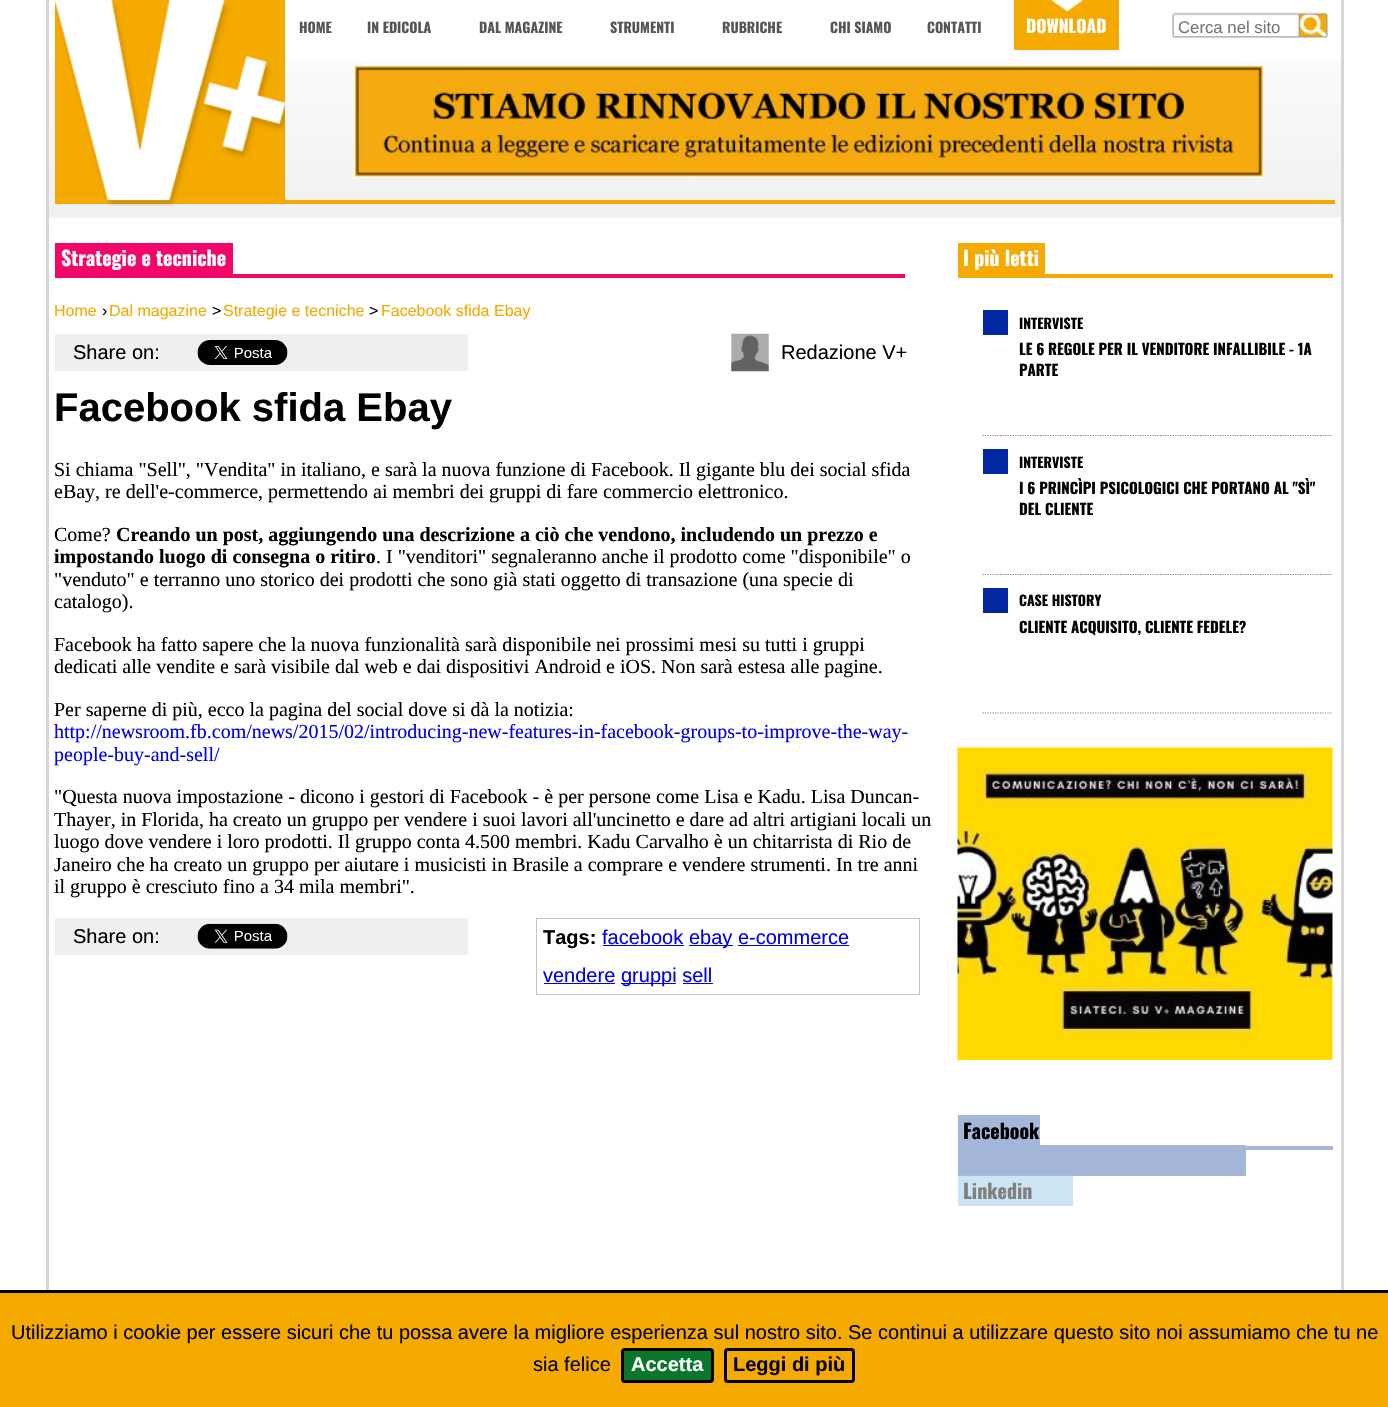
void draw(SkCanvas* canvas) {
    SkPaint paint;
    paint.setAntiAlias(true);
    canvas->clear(0xFFFFFFFF);
    paint.setColor(0xFFCBE6F2);
    canvas->drawRect(SkRect::MakeXYWH(958, 1176, 115, 30), paint);
    canvas->drawImageRect(SkImages::DeferredFromEncodedData(SkData::MakeFromFileName("img1.png")), SkRect::MakeXYWH(49, 60, 1292, 158), SkSamplingOptions());
    paint.setColor(0xFFD6D6D6);
    canvas->drawRect(SkRect::MakeXYWH(1341, 0, 3, 1290), paint);
    canvas->drawRect(SkRect::MakeXYWH(46, 0, 3, 1290), paint);
    paint.setColor(0xFFF4AA00);
    canvas->drawRect(SkRect::MakeXYWH(55, 200, 1280, 4), paint);
    canvas->drawImageRect(SkImages::DeferredFromEncodedData(SkData::MakeFromFileName("img2.png")), SkRect::MakeXYWH(55, 0, 230, 206), SkSamplingOptions());
    SkFont font1(fontMgr->matchFamilyStyle("Oswald", SkFontStyle::Bold()), 14);
    font1.setSubpixel(true);
    paint.setColor(0xFF565656);
    canvas->drawString("HOME", 299, 33, font1, paint);
    canvas->drawString("IN EDICOLA", 367, 33, font1, paint);
    canvas->drawString("DAL MAGAZINE", 479, 33, font1, paint);
    canvas->drawString("STRUMENTI", 610, 33, font1, paint);
    canvas->drawString("RUBRICHE", 722, 33, font1, paint);
    canvas->drawString("CHI SIAMO", 830, 33, font1, paint);
    canvas->drawString("CONTATTI", 927, 33, font1, paint);
    paint.setColor(0xFFF4AA00);
    canvas->drawRect(SkRect::MakeXYWH(1014, 0, 105, 50), paint);
    canvas->drawImageRect(SkImages::DeferredFromEncodedData(SkData::MakeFromFileName("img3.png")), SkRect::MakeXYWH(1051, 0, 33, 12), SkSamplingOptions());
    SkFont font2(fontMgr->matchFamilyStyle("Oswald", SkFontStyle::Bold()), 17.5f);
    font2.setSubpixel(true);
    paint.setColor(0xFFFFFFFF);
    canvas->drawString("DOWNLOAD", 1026, 33, font2, paint);
    canvas->drawImageRect(SkImages::DeferredFromEncodedData(SkData::MakeFromFileName("img4.png")), SkRect::MakeXYWH(1172, 12, 156, 26), SkSamplingOptions());
    SkFont font3(fontMgr->matchFamilyStyle("Liberation Sans", SkFontStyle::Normal()), 16.75f);
    font3.setSubpixel(true);
    paint.setColor(0xFF757575);
    canvas->drawString("Cerca nel sito", 1178, 33, font3, paint);
    canvas->drawImageRect(SkImages::DeferredFromEncodedData(SkData::MakeFromFileName("img5.png")), SkRect::MakeXYWH(353, 65, 911, 113), SkSamplingOptions());
    paint.setColor(0xFFF20769);
    canvas->drawRect(SkRect::MakeXYWH(55, 274, 850, 4), paint);
    canvas->drawRect(SkRect::MakeXYWH(55, 243, 178, 31), paint);
    SkFont font4(fontMgr->matchFamilyStyle("Oswald", SkFontStyle::Bold()), 20);
    font4.setSubpixel(true);
    paint.setColor(0xFFFFFFFF);
    canvas->drawString("Strategie e tecniche", 61, 266, font4, paint);
    SkFont font5(fontMgr->matchFamilyStyle("Liberation Sans", SkFontStyle::Normal()), 16);
    font5.setSubpixel(true);
    paint.setColor(0xFFF4AA00);
    canvas->drawString("Home", 54, 316, font5, paint);
    paint.setColor(0xFF000000);
    canvas->drawString("›", 102, 316, font5, paint);
    paint.setColor(0xFFF4AA00);
    canvas->drawString("Dal magazine", 109, 316, font5, paint);
    paint.setColor(0xFF000000);
    canvas->drawString(">", 212, 316, font5, paint);
    paint.setColor(0xFFF4AA00);
    canvas->drawString("Strategie e tecniche", 223, 316, font5, paint);
    paint.setColor(0xFF000000);
    canvas->drawString(">", 369, 316, font5, paint);
    paint.setColor(0xFFF4AA00);
    canvas->drawString("Facebook sfida Ebay", 381, 316, font5, paint);
    paint.setColor(0xFFEFEFEF);
    canvas->drawRect(SkRect::MakeXYWH(55, 334, 413, 37), paint);
    SkFont font6(fontMgr->matchFamilyStyle("Liberation Sans", SkFontStyle::Normal()), 20);
    font6.setSubpixel(true);
    paint.setColor(0xFF000000);
    canvas->drawString("Share on:", 73, 359, font6, paint);
    canvas->drawImageRect(SkImages::DeferredFromEncodedData(SkData::MakeFromFileName("img6.png")), SkRect::MakeXYWH(197, 340, 91, 25), SkSamplingOptions());
    canvas->drawImageRect(SkImages::DeferredFromEncodedData(SkData::MakeFromFileName("img7.png")), SkRect::MakeXYWH(731, 333, 38, 39), SkSamplingOptions());
    canvas->drawString("Redazione V+", 781, 359, font6, paint);
    SkFont font7(fontMgr->matchFamilyStyle("Liberation Sans", SkFontStyle::Bold()), 40);
    font7.setSubpixel(true);
    canvas->drawString("Facebook sfida Ebay", 54, 421, font7, paint);
    SkFont font8(fontMgr->matchFamilyStyle("Liberation Serif", SkFontStyle::Normal()), 20);
    font8.setSubpixel(true);
    canvas->drawString("Si chiama \"Sell\", \"Vendita\" in italiano, e sarà la nuova funzione di Facebook. Il gigante blu dei social sfida", 54, 476, font8, paint);
    canvas->drawString("eBay, re dell'e-commerce, permettendo ai membri dei gruppi di fare commercio elettronico.", 54, 498, font8, paint);
    canvas->drawString("Come?", 54, 541, font8, paint);
    SkFont font9(fontMgr->matchFamilyStyle("Liberation Serif", SkFontStyle::Bold()), 20);
    font9.setSubpixel(true);
    canvas->drawString("Creando un post, aggiungendo una descrizione a ciò che vendono, includendo un prezzo e", 116, 541, font9, paint);
    canvas->drawString("impostando luogo di consegna o ritiro", 54, 563, font9, paint);
    canvas->drawString(". I \"venditori\" segnaleranno anche il prodotto come \"disponibile\" o", 376, 563, font8, paint);
    canvas->drawString("\"venduto\" e terranno uno storico dei prodotti che sono già stati oggetto di transazione (una specie di", 54, 586, font8, paint);
    canvas->drawString("catalogo).", 54, 608, font8, paint);
    canvas->drawString("Facebook ha fatto sapere che la nuova funzionalità sarà disponibile nei prossimi mesi su tutti i gruppi", 54, 651, font8, paint);
    canvas->drawString("dedicati alle vendite e sarà visibile dal web e dai dispositivi Android e iOS. Non sarà estesa alle pagine.", 54, 673, font8, paint);
    canvas->drawString("Per saperne di più, ecco la pagina del social dove si dà la notizia:", 54, 716, font8, paint);
    paint.setColor(0xFF0000EE);
    canvas->drawString("http://newsroom.fb.com/news/2015/02/introducing-new-features-in-facebook-groups-to-improve-the-way-", 54, 738, font8, paint);
    canvas->drawString("people-buy-and-sell/", 54, 761, font8, paint);
    paint.setColor(0xFF000000);
    canvas->drawString("\"Questa nuova impostazione - dicono i gestori di Facebook - è per persone come Lisa e Kadu. Lisa Duncan-", 54, 803, font8, paint);
    canvas->drawString("Thayer, in Florida, ha creato un gruppo per vendere i suoi lavori all'uncinetto e dare ad altri artigiani locali un", 54, 826, font8, paint);
    canvas->drawString("luogo dove vendere i loro prodotti. Il gruppo conta 4.500 membri. Kadu Carvalho è un chitarrista di Rio de", 54, 848, font8, paint);
    canvas->drawString("Janeiro che ha creato un gruppo per aiutare i musicisti in Brasile a comprare e vendere strumenti. In tre anni", 54, 871, font8, paint);
    canvas->drawString("il gruppo è cresciuto fino a 34 mila membri\".", 54, 893, font8, paint);
    paint.setColor(0xFFEFEFEF);
    canvas->drawRect(SkRect::MakeXYWH(55, 918, 413, 37), paint);
    paint.setColor(0xFF000000);
    canvas->drawString("Share on:", 73, 943, font6, paint);
    canvas->drawImageRect(SkImages::DeferredFromEncodedData(SkData::MakeFromFileName("img8.png")), SkRect::MakeXYWH(197, 923, 91, 26), SkSamplingOptions());
    paint.setStyle(SkPaint::kStroke_Style);
    paint.setStrokeWidth(1);
    paint.setColor(0xFFC5C5C5);
    canvas->drawRect(SkRect::MakeXYWH(536.5f, 918.5f, 383, 76), paint);
    SkFont font10(fontMgr->matchFamilyStyle("Liberation Sans", SkFontStyle::Bold()), 20);
    font10.setSubpixel(true);
    paint.setStyle(SkPaint::kFill_Style);
    paint.setColor(0xFF000000);
    canvas->drawString("Tags:", 543, 944, font10, paint);
    paint.setColor(0xFF0000EE);
    canvas->drawString("facebook", 602, 944, font6, paint);
    canvas->drawRect(SkRect::MakeXYWH(603, 945, 81, 1), paint);
    canvas->drawRect(SkRect::MakeXYWH(689, 945, 44, 1), paint);
    canvas->drawString("ebay e-commerce", 689, 944, font6, paint);
    canvas->drawRect(SkRect::MakeXYWH(738, 945, 111, 1), paint);
    canvas->drawString("vendere", 543, 982, font6, paint);
    canvas->drawRect(SkRect::MakeXYWH(544, 983, 71, 1), paint);
    canvas->drawRect(SkRect::MakeXYWH(621, 983, 55, 1), paint);
    canvas->drawString("gruppi sell", 621, 982, font6, paint);
    canvas->drawRect(SkRect::MakeXYWH(683, 983, 30, 1), paint);
    paint.setColor(0xFFF4AA00);
    canvas->drawRect(SkRect::MakeXYWH(958, 274, 375, 4), paint);
    canvas->drawRect(SkRect::MakeXYWH(958, 243, 87, 31), paint);
    paint.setColor(0xFFFFFFFF);
    canvas->drawString("I più letti", 963, 266, font4, paint);
    paint.setStyle(SkPaint::kStroke_Style);
    paint.setStrokeWidth(1.2f);
    paint.setColor(0xFF808080);
    paint.setPathEffect(SkDashPathEffect::Make({{1.25f, 1.25f}}, 0));
    canvas->drawPath(SkPathBuilder().moveTo(982.5f, 435.5f).lineTo(1332.5f, 435.5f).detach(), paint);
    paint.setPathEffect(nullptr);
    paint.setStyle(SkPaint::kFill_Style);
    paint.setColor(0xFF0327A0);
    canvas->drawRect(SkRect::MakeXYWH(983, 310, 25, 25), paint);
    paint.setColor(0xFF000000);
    canvas->drawString("INTERVISTE", 1019, 329, font1, paint);
    SkFont font11(fontMgr->matchFamilyStyle("Oswald", SkFontStyle::Bold()), 15);
    font11.setSubpixel(true);
    canvas->drawString("LE 6 REGOLE PER IL VENDITORE INFALLIBILE - 1A", 1019, 355, font11, paint);
    canvas->drawString("PARTE", 1019, 376, font11, paint);
    paint.setStyle(SkPaint::kStroke_Style);
    paint.setColor(0xFF808080);
    paint.setPathEffect(SkDashPathEffect::Make({{1.25f, 1.25f}}, 0));
    canvas->drawPath(SkPathBuilder().moveTo(982.5f, 574.5f).lineTo(1332.5f, 574.5f).detach(), paint);
    paint.setPathEffect(nullptr);
    paint.setStyle(SkPaint::kFill_Style);
    paint.setColor(0xFF0327A0);
    canvas->drawRect(SkRect::MakeXYWH(983, 449, 25, 25), paint);
    paint.setColor(0xFF000000);
    canvas->drawString("INTERVISTE", 1019, 468, font1, paint);
    canvas->drawString("I 6 PRINCÌPI PSICOLOGICI CHE PORTANO AL \"SÌ\"", 1019, 494, font11, paint);
    canvas->drawString("DEL CLIENTE", 1019, 515, font11, paint);
    paint.setStyle(SkPaint::kStroke_Style);
    paint.setColor(0xFF808080);
    paint.setPathEffect(SkDashPathEffect::Make({{1.25f, 1.25f}}, 0));
    canvas->drawPath(SkPathBuilder().moveTo(982.5f, 713).lineTo(1332.5f, 713).detach(), paint);
    paint.setPathEffect(nullptr);
    paint.setStyle(SkPaint::kFill_Style);
    paint.setColor(0xFF0327A0);
    canvas->drawRect(SkRect::MakeXYWH(983, 588, 25, 25), paint);
    paint.setColor(0xFF000000);
    canvas->drawString("CASE HISTORY", 1019, 606, font1, paint);
    canvas->drawString("CLIENTE ACQUISITO, CLIENTE FEDELE?", 1019, 633, font11, paint);
    canvas->drawImageRect(SkImages::DeferredFromEncodedData(SkData::MakeFromFileName("img9.png")), SkRect::MakeXYWH(957, 747, 376, 313), SkSamplingOptions());
    paint.setColor(0xFFA5B7D9);
    canvas->drawRect(SkRect::MakeXYWH(1246, 1146, 87, 4), paint);
    canvas->drawRect(SkRect::MakeXYWH(958, 1115, 82, 30), paint);
    paint.setColor(0xFF000000);
    canvas->drawString("Facebook", 963, 1139, font4, paint);
    paint.setColor(0xFFA5B7D9);
    canvas->drawRect(SkRect::MakeXYWH(958, 1145, 288, 31), paint);
    paint.setColor(0xFF9EC2DF);
    canvas->drawRect(SkRect::MakeXYWH(958, 1175, 115, 1), paint);
    paint.setColor(0xFF808080);
    canvas->drawString("Linkedin", 963, 1199, font4, paint);
    paint.setColor(0xFFF4AA00);
    canvas->drawRect(SkRect::MakeXYWH(0, 1293, 1388, 114), paint);
    paint.setColor(0xFF000000);
    canvas->drawRect(SkRect::MakeXYWH(0, 1290, 1388, 3), paint);
    canvas->drawString("Utilizziamo i cookie per essere sicuri che tu possa avere la migliore esperienza sul nostro sito. Se continui a utilizzare questo sito noi assumiamo che tu ne", 11, 1339, font6, paint);
    canvas->drawString("sia felice", 533, 1371, font6, paint);
    paint.setColor(0xFF0C762C);
    canvas->drawRoundRect(SkRect::MakeXYWH(622.5f, 1349.5f, 90, 32), 2.5f, 2.5f, paint);
    paint.setStyle(SkPaint::kStroke_Style);
    paint.setStrokeWidth(3);
    paint.setColor(0xFF000000);
    canvas->drawRoundRect(SkRect::MakeXYWH(622.5f, 1349.5f, 90, 32), 2.5f, 2.5f, paint);
    paint.setStyle(SkPaint::kFill_Style);
    paint.setColor(0xFFFFFFFF);
    canvas->drawString("Accetta", 631, 1371, font10, paint);
    paint.setStyle(SkPaint::kStroke_Style);
    paint.setColor(0xFF000000);
    canvas->drawRoundRect(SkRect::MakeXYWH(725.5f, 1349.5f, 128, 32), 2.5f, 2.5f, paint);
    paint.setStyle(SkPaint::kFill_Style);
    canvas->drawString("Leggi di più", 733, 1371, font10, paint);
}
